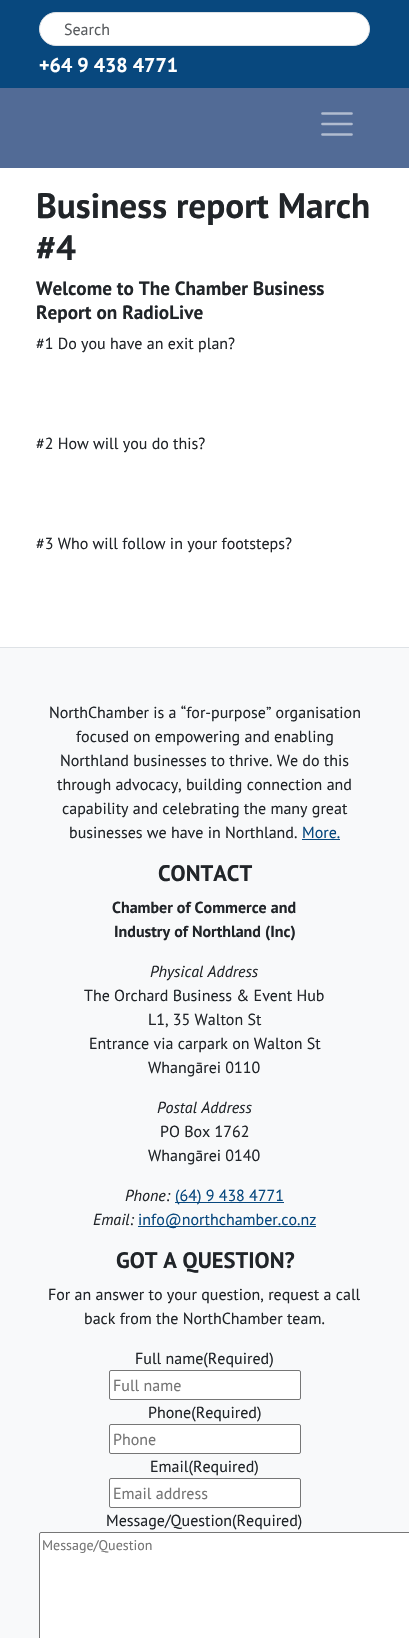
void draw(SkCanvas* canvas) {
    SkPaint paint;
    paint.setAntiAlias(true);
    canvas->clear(0xFFFFFFFF);
    paint.setColor(0xFF08487E);
    canvas->drawRect(SkRect::MakeXYWH(0, 0, 409, 88), paint);
    paint.setColor(0xFFFFFFFF);
    canvas->drawRoundRect(SkRect::MakeXYWH(39.5f, 12.5f, 330, 33), 16.5f, 16.5f, paint);
    paint.setStyle(SkPaint::kStroke_Style);
    paint.setStrokeWidth(1);
    paint.setColor(0xFFDEE2E6);
    canvas->drawRoundRect(SkRect::MakeXYWH(39.5f, 12.5f, 330, 33), 16.5f, 16.5f, paint);
    SkFont font1(fontMgr->matchFamilyStyle("PT Sans", SkFontStyle::Normal()), 16);
    font1.setSubpixel(true);
    paint.setStyle(SkPaint::kFill_Style);
    paint.setColor(0xFF595C5F);
    canvas->drawString("Search", 64, 35, font1, paint);
    SkFont font2(fontMgr->matchFamilyStyle("PT Sans", SkFontStyle::Bold()), 20);
    font2.setSubpixel(true);
    paint.setColor(0xFFFFFFFF);
    canvas->drawString("+64 9 438 4771", 39, 72, font2, paint);
    paint.setColor(0xFF526B96);
    canvas->drawRect(SkRect::MakeXYWH(0, 88, 409, 80), paint);
    paint.setStyle(SkPaint::kStroke_Style);
    paint.setStrokeWidth(2.7f);
    paint.setStrokeCap(SkPaint::kRound_Cap);
    paint.setColor(0xFFB1BCD0);
    canvas->drawPath(SkPathBuilder().moveTo(322.5f, 113.5f).lineTo(351.5f, 113.5f).moveTo(322.5f, 124).lineTo(351.5f, 124).moveTo(322.5f, 134.5f).lineTo(351.5f, 134.5f).detach(), paint);
    SkFont font3(fontMgr->matchFamilyStyle("PT Sans", SkFontStyle::Bold()), 35.25f);
    font3.setSubpixel(true);
    paint.setStyle(SkPaint::kFill_Style);
    paint.setColor(0xFF212529);
    canvas->drawString("Business report March", 36, 218, font3, paint);
    canvas->drawString("#4", 36, 260, font3, paint);
    SkFont font4(fontMgr->matchFamilyStyle("PT Sans", SkFontStyle::Bold()), 19.25f);
    font4.setSubpixel(true);
    canvas->drawString("Welcome to The Chamber Business", 36, 295, font4, paint);
    canvas->drawString("Report on RadioLive", 36, 319, font4, paint);
    canvas->drawString("#1 Do you have an exit plan?", 36, 349, font1, paint);
    canvas->drawString("#2 How will you do this?", 36, 449, font1, paint);
    canvas->drawString("#3 Who will follow in your footsteps?", 36, 549, font1, paint);
    paint.setColor(0xFFF8F9FA);
    canvas->drawRect(SkRect::MakeXYWH(0, 648, 409, 990), paint);
    paint.setColor(0xFFDEE2E6);
    canvas->drawRect(SkRect::MakeXYWH(0, 647, 409, 1), paint);
    paint.setColor(0xFF212529);
    canvas->drawString("NorthChamber is a “for-purpose” organisation", 49, 718, font1, paint);
    canvas->drawString("focused on empowering and enabling", 76, 742, font1, paint);
    canvas->drawString("Northland businesses to thrive. We do this", 60, 766, font1, paint);
    canvas->drawString("through advocacy, building connection and", 57, 790, font1, paint);
    canvas->drawString("capability and celebrating the many great", 62, 814, font1, paint);
    canvas->drawString("businesses we have in Northland.", 69, 838, font1, paint);
    paint.setColor(0xFF08487E);
    canvas->drawString("More.", 302, 838, font1, paint);
    canvas->drawRect(SkRect::MakeXYWH(302, 839, 38, 1), paint);
    SkFont font5(fontMgr->matchFamilyStyle("PT Sans", SkFontStyle::Bold()), 22.5f);
    font5.setSubpixel(true);
    paint.setColor(0xFF212529);
    canvas->drawString("CONTACT", 158, 881, font5, paint);
    SkFont font6(fontMgr->matchFamilyStyle("PT Sans", SkFontStyle::Bold()), 16);
    font6.setSubpixel(true);
    canvas->drawString("Chamber of Commerce and", 112, 913, font6, paint);
    canvas->drawString("Industry of Northland (Inc)", 114, 937, font6, paint);
    SkFont font7(fontMgr->matchFamilyStyle("PT Sans", SkFontStyle::Italic()), 16);
    font7.setSubpixel(true);
    canvas->drawString("Physical Address", 150, 977, font7, paint);
    canvas->drawString("The Orchard Business & Event Hub", 84, 1001, font1, paint);
    canvas->drawString("L1, 35 Walton St", 148, 1025, font1, paint);
    canvas->drawString("Entrance via carpark on Walton St", 89, 1049, font1, paint);
    canvas->drawString("Whangārei 0110", 148, 1073, font1, paint);
    canvas->drawString("Postal Address", 157, 1113, font7, paint);
    canvas->drawString("PO Box 1762", 160, 1137, font1, paint);
    canvas->drawString("Whangārei 0140", 148, 1161, font1, paint);
    canvas->drawString("Phone:", 125, 1201, font7, paint);
    paint.setColor(0xFF08487E);
    canvas->drawRect(SkRect::MakeXYWH(175, 1202, 109, 1), paint);
    canvas->drawString("(64) 9 438 4771", 175, 1201, font1, paint);
    paint.setColor(0xFF212529);
    canvas->drawString("Email:", 93, 1225, font7, paint);
    paint.setColor(0xFF08487E);
    canvas->drawRect(SkRect::MakeXYWH(138, 1226, 178, 1), paint);
    canvas->drawString("info@northchamber.co.nz", 138, 1225, font1, paint);
    paint.setColor(0xFF212529);
    canvas->drawString("GOT A QUESTION?", 116, 1268, font5, paint);
    canvas->drawString("For an answer to your question, request a call", 48, 1300, font1, paint);
    canvas->drawString("back from the NorthChamber team.", 84, 1324, font1, paint);
    canvas->drawString("Full name(Required)", 135, 1364, font1, paint);
    paint.setColor(0xFFFFFFFF);
    canvas->drawRoundRect(SkRect::MakeXYWH(109.5f, 1370.5f, 191, 29), 1.5f, 1.5f, paint);
    paint.setStyle(SkPaint::kStroke_Style);
    paint.setStrokeWidth(1);
    paint.setStrokeCap(SkPaint::kButt_Cap);
    paint.setColor(0xFF767676);
    canvas->drawRoundRect(SkRect::MakeXYWH(109.5f, 1370.5f, 191, 29), 1.5f, 1.5f, paint);
    paint.setStyle(SkPaint::kFill_Style);
    paint.setColor(0xFF757575);
    canvas->drawString("Full name", 113, 1391, font1, paint);
    paint.setColor(0xFF212529);
    canvas->drawString("Phone(Required)", 148, 1418, font1, paint);
    paint.setColor(0xFFFFFFFF);
    canvas->drawRoundRect(SkRect::MakeXYWH(109.5f, 1424.5f, 191, 29), 1.5f, 1.5f, paint);
    paint.setStyle(SkPaint::kStroke_Style);
    paint.setColor(0xFF767676);
    canvas->drawRoundRect(SkRect::MakeXYWH(109.5f, 1424.5f, 191, 29), 1.5f, 1.5f, paint);
    paint.setStyle(SkPaint::kFill_Style);
    paint.setColor(0xFF757575);
    canvas->drawString("Phone", 113, 1445, font1, paint);
    paint.setColor(0xFF212529);
    canvas->drawString("Email(Required)", 150, 1472, font1, paint);
    paint.setColor(0xFFFFFFFF);
    canvas->drawRoundRect(SkRect::MakeXYWH(109.5f, 1478.5f, 191, 29), 1.5f, 1.5f, paint);
    paint.setStyle(SkPaint::kStroke_Style);
    paint.setColor(0xFF767676);
    canvas->drawRoundRect(SkRect::MakeXYWH(109.5f, 1478.5f, 191, 29), 1.5f, 1.5f, paint);
    paint.setStyle(SkPaint::kFill_Style);
    paint.setColor(0xFF757575);
    canvas->drawString("Email address", 113, 1499, font1, paint);
    paint.setColor(0xFF212529);
    canvas->drawString("Message/Question(Required)", 106, 1526, font1, paint);
    paint.setColor(0xFFFFFFFF);
    canvas->drawPath(SkPathBuilder().moveTo(41, 1532).lineTo(409, 1532).lineTo(409, 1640).lineTo(41, 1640).cubicTo(40, 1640, 39, 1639, 39, 1638).lineTo(39, 1534).cubicTo(39, 1533, 40, 1532, 41, 1532).close().detach(), paint);
    paint.setStyle(SkPaint::kStroke_Style);
    paint.setColor(0xFF767676);
    canvas->drawRoundRect(SkRect::MakeXYWH(39.5f, 1532.5f, 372, 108), 1.5f, 1.5f, paint);
    SkFont font8(fontMgr->matchFamilyStyle("PT Sans", SkFontStyle::Normal()), 14);
    font8.setSubpixel(true);
    paint.setStyle(SkPaint::kFill_Style);
    paint.setColor(0xFF757575);
    canvas->drawString("Message/Question", 42, 1550, font8, paint);
}
